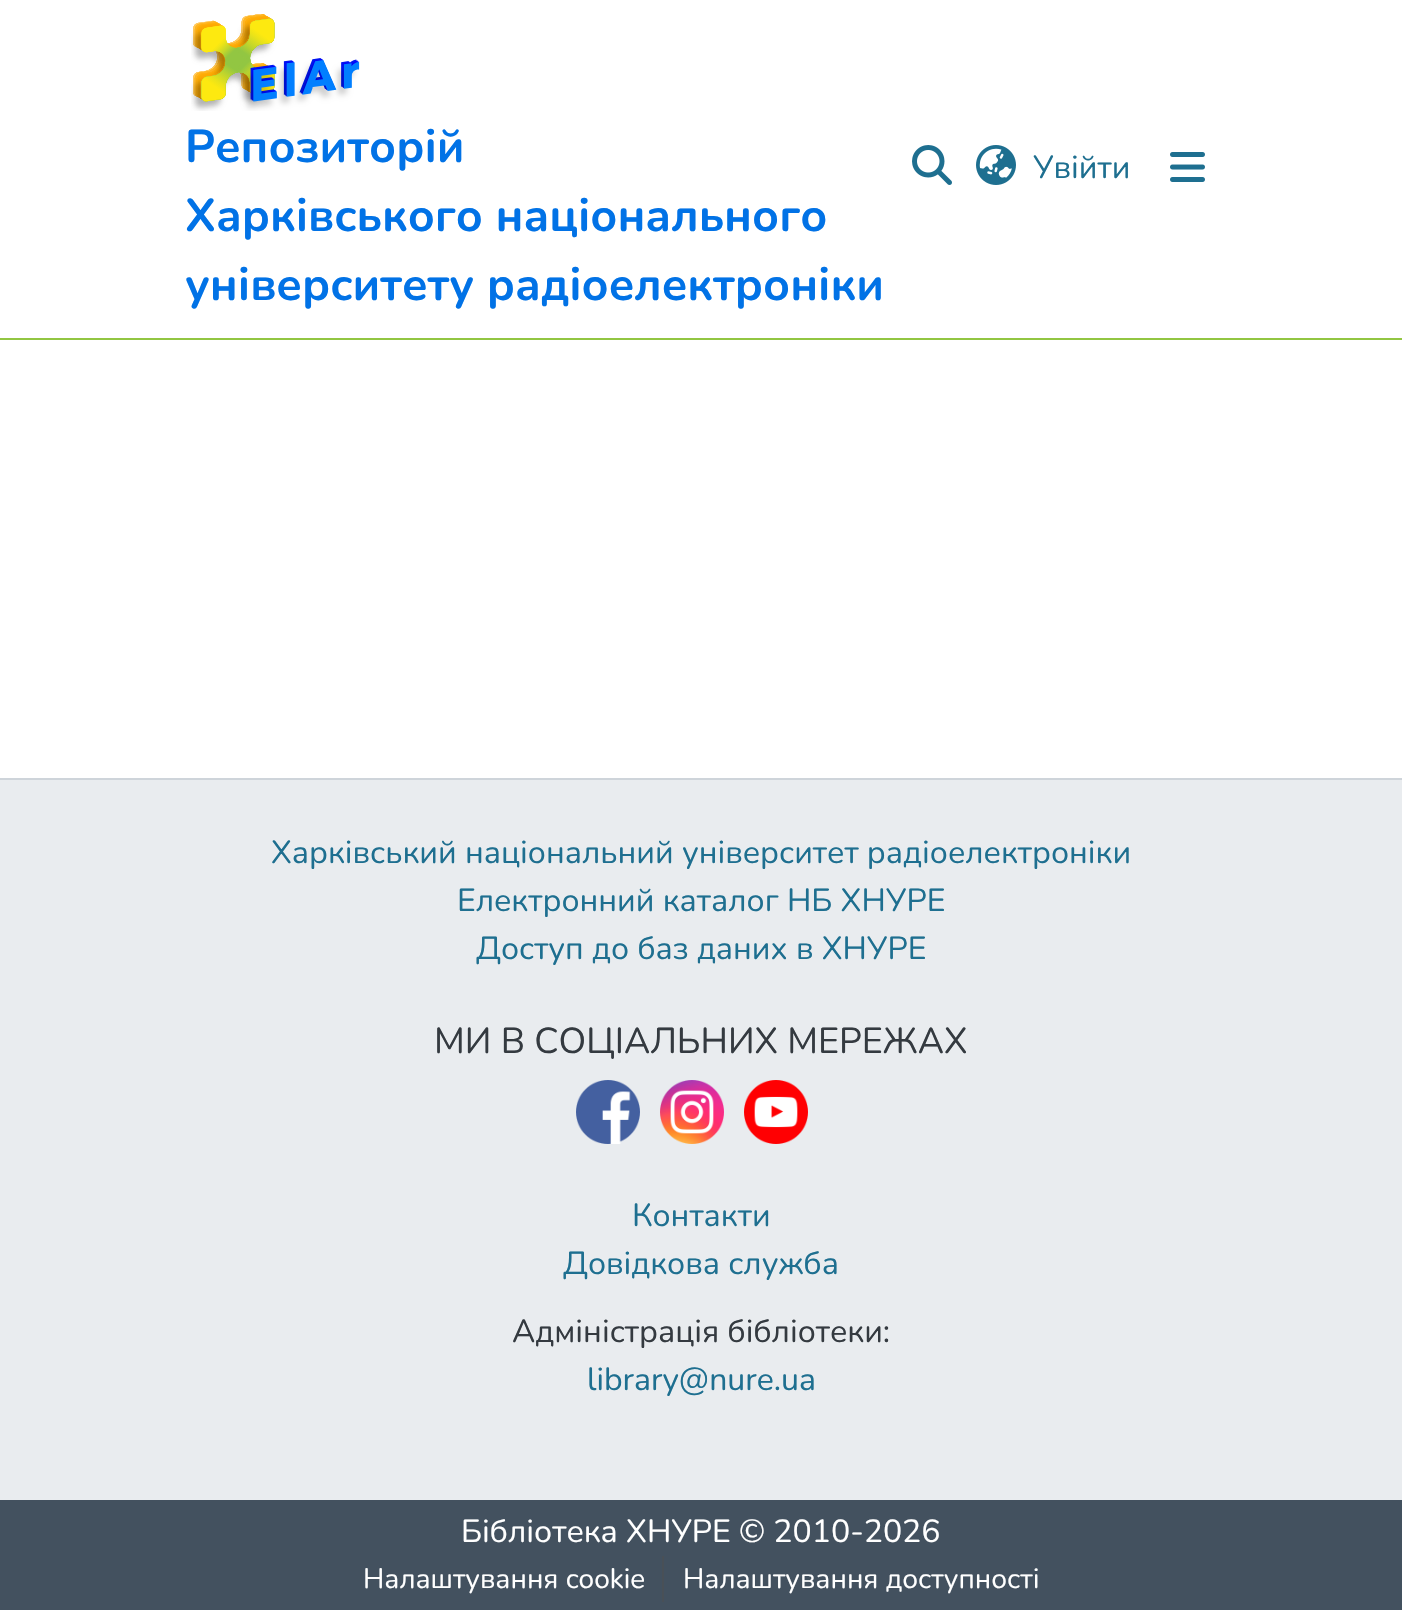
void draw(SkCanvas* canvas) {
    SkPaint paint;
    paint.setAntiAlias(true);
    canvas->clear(0xFFFFFFFF);
    paint.setColor(0xFF92C642);
    canvas->drawRect(SkRect::MakeXYWH(0, 338, 1402, 2), paint);
    canvas->drawImageRect(SkImages::DeferredFromEncodedData(SkData::MakeFromFileName("img1.png")), SkRect::MakeXYWH(191, 14, 169, 97), SkSamplingOptions());
    SkFont font1(fontMgr->matchFamilyStyle("Nunito", SkFontStyle::Bold()), 46);
    font1.setSubpixel(true);
    paint.setColor(0xFF0172E6);
    canvas->drawString("Репозиторій", 185, 162, font1, paint);
    canvas->drawString("Харківського національного", 185, 231, font1, paint);
    canvas->drawString("університету радіоелектроніки", 185, 300, font1, paint);
    canvas->drawImageRect(SkImages::DeferredFromEncodedData(SkData::MakeFromFileName("img2.png")), SkRect::MakeXYWH(912, 145, 40, 40), SkSamplingOptions());
    canvas->drawImageRect(SkImages::DeferredFromEncodedData(SkData::MakeFromFileName("img3.png")), SkRect::MakeXYWH(976, 145, 40, 40), SkSamplingOptions());
    SkFont font2(fontMgr->matchFamilyStyle("Nunito", SkFontStyle::Normal()), 32);
    font2.setSubpixel(true);
    paint.setColor(0xFF1E6F90);
    canvas->drawString("Увійти", 1033, 178, font2, paint);
    canvas->drawImageRect(SkImages::DeferredFromEncodedData(SkData::MakeFromFileName("img4.png")), SkRect::MakeXYWH(1170, 152, 35, 30), SkSamplingOptions());
    paint.setColor(0xFF43515F);
    canvas->drawRect(SkRect::MakeXYWH(0, 1500, 1402, 110), paint);
    paint.setColor(0xFFCED4DA);
    canvas->drawRect(SkRect::MakeXYWH(0, 778, 1402, 2), paint);
    paint.setColor(0xFFE9ECEF);
    canvas->drawRect(SkRect::MakeXYWH(0, 780, 1402, 720), paint);
    paint.setColor(0xFF1E6F90);
    canvas->drawString("Харківський національний університет радіоелектроніки", 271, 863, font2, paint);
    canvas->drawString("Електронний каталог НБ ХНУРЕ", 457, 911, font2, paint);
    canvas->drawString("Доступ до баз даних в ХНУРЕ", 476, 959, font2, paint);
    SkFont font3(fontMgr->matchFamilyStyle("Nunito", SkFontStyle::Normal()), 36);
    font3.setSubpixel(true);
    paint.setColor(0xFF343A40);
    canvas->drawString("МИ В СОЦІАЛЬНИХ МЕРЕЖАХ", 434, 1053, font3, paint);
    canvas->drawImageRect(SkImages::DeferredFromEncodedData(SkData::MakeFromFileName("img5.png")), SkRect::MakeXYWH(576, 1080, 64, 64), SkSamplingOptions());
    canvas->drawImageRect(SkImages::DeferredFromEncodedData(SkData::MakeFromFileName("img6.png")), SkRect::MakeXYWH(660, 1080, 64, 64), SkSamplingOptions());
    canvas->drawImageRect(SkImages::DeferredFromEncodedData(SkData::MakeFromFileName("img7.png")), SkRect::MakeXYWH(744, 1080, 64, 64), SkSamplingOptions());
    paint.setColor(0xFF1E6F90);
    canvas->drawString("Контакти", 632, 1226, font2, paint);
    canvas->drawString("Довідкова служба", 563, 1274, font2, paint);
    paint.setColor(0xFF343A40);
    canvas->drawString("Адміністрація бібліотеки:", 512, 1342, font2, paint);
    paint.setColor(0xFF1E6F90);
    canvas->drawString("library@nure.ua", 587, 1390, font2, paint);
    paint.setColor(0xFFFFFFFF);
    canvas->drawString("Бібліотека ХНУРЕ © 2010-2026", 461, 1542, font2, paint);
    SkFont font4(fontMgr->matchFamilyStyle("Nunito", SkFontStyle::Normal()), 28);
    font4.setSubpixel(true);
    canvas->drawString("Налаштування cookie", 363, 1588, font4, paint);
    paint.setColor(0xFF495057);
    canvas->drawRect(SkRect::MakeXYWH(662, 1556, 2, 46), paint);
    paint.setColor(0xFFFFFFFF);
    canvas->drawString("Налаштування доступності", 683, 1588, font4, paint);
}
